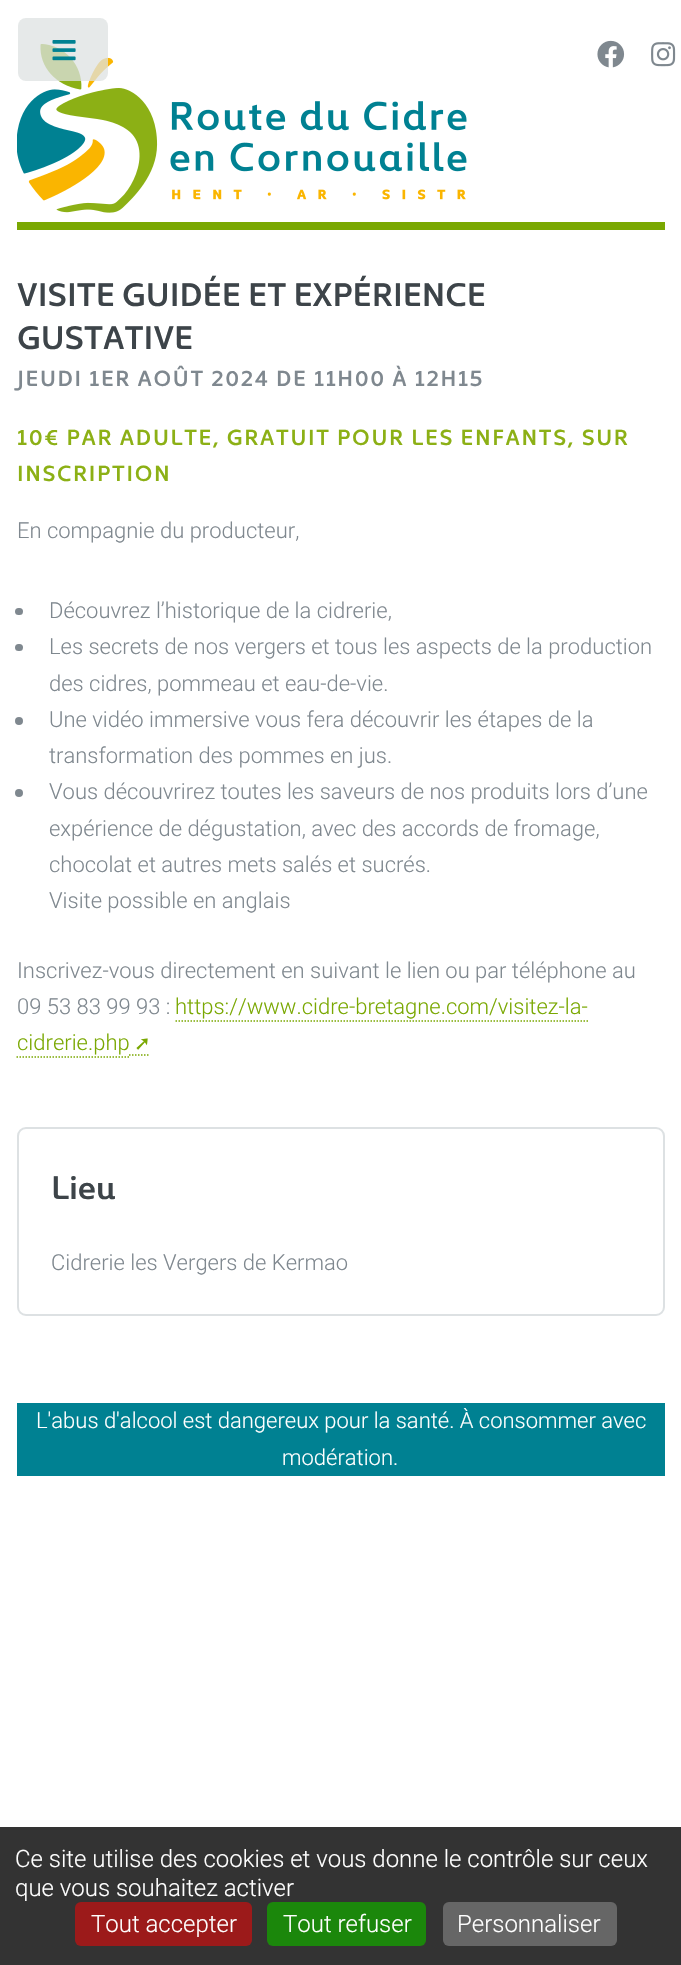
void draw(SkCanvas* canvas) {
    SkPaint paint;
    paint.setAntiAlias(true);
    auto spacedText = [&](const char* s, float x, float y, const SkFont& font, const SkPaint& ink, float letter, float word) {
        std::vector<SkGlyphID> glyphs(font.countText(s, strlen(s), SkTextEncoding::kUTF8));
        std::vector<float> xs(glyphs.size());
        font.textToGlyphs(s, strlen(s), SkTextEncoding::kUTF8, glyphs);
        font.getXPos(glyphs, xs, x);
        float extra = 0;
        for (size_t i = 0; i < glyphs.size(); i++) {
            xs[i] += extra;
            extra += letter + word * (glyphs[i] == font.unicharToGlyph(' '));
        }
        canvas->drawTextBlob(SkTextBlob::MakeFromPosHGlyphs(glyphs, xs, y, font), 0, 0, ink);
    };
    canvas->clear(0xFFFFFFFF);
    canvas->drawImageRect(SkImages::DeferredFromEncodedData(SkData::MakeFromFileName("img2.png")), SkRect::MakeXYWH(17, 44, 450, 169), SkSamplingOptions());
    paint.setColor(0xBFDEE1E2);
    canvas->drawRoundRect(SkRect::MakeXYWH(18, 18, 90, 63), 8, 8, paint);
    canvas->drawImageRect(SkImages::DeferredFromEncodedData(SkData::MakeFromFileName("img1.png")), SkRect::MakeXYWH(52, 40, 24, 21), SkSamplingOptions());
    paint.setColor(0xFF7AA802);
    canvas->drawRect(SkRect::MakeXYWH(17, 222, 648, 8), paint);
    canvas->drawImageRect(SkImages::DeferredFromEncodedData(SkData::MakeFromFileName("img3.png")), SkRect::MakeXYWH(597, 40, 28, 28), SkSamplingOptions());
    canvas->drawImageRect(SkImages::DeferredFromEncodedData(SkData::MakeFromFileName("img4.png")), SkRect::MakeXYWH(651, 42, 25, 25), SkSamplingOptions());
    SkFont font1(fontMgr->matchFamilyStyle("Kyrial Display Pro", SkFontStyle(600, SkFontStyle::kNormal_Width, SkFontStyle::kUpright_Slant)), 33);
    font1.setSubpixel(true);
    paint.setColor(0xFF3D4449);
    canvas->drawString("VISITE GUIDÉE ET EXPÉRIENCE", 17, 306, font1, paint);
    canvas->drawString("GUSTATIVE", 17, 349, font1, paint);
    SkFont font2(fontMgr->matchFamilyStyle("Kyrial Display Pro", SkFontStyle(600, SkFontStyle::kNormal_Width, SkFontStyle::kUpright_Slant)), 22);
    font2.setSubpixel(true);
    paint.setColor(0xFF7F888F);
    spacedText("JEUDI 1ER AOÛT 2024 DE 11H00 À 12H15", 17, 386, font2, paint, 1.65f, 0);
    paint.setColor(0xFF8CB015);
    spacedText("10€ PAR ADULTE, GRATUIT POUR LES ENFANTS, SUR", 17, 445, font2, paint, 1.65f, 0);
    spacedText("INSCRIPTION", 17, 481, font2, paint, 1.65f, 0);
    SkFont font3(fontMgr->matchFamilyStyle("Roboto", SkFontStyle(300, SkFontStyle::kNormal_Width, SkFontStyle::kUpright_Slant)), 22);
    font3.setSubpixel(true);
    paint.setColor(0xFF7F888F);
    canvas->drawString("En compagnie du producteur,", 17, 538, font3, paint);
    canvas->drawRoundRect(SkRect::MakeXYWH(15, 608, 8, 7), 3.5f, 3.5f, paint);
    canvas->drawString("Découvrez l’historique de la cidrerie,", 49, 618, font3, paint);
    canvas->drawRoundRect(SkRect::MakeXYWH(15, 644, 8, 7), 3.5f, 3.5f, paint);
    canvas->drawString("Les secrets de nos vergers et tous les aspects de la production", 49, 654, font3, paint);
    canvas->drawString("des cidres, pommeau et eau-de-vie.", 49, 691, font3, paint);
    canvas->drawCircle(19, 721, 4, paint);
    canvas->drawString("Une vidéo immersive vous fera découvrir les étapes de la", 49, 727, font3, paint);
    canvas->drawString("transformation des pommes en jus.", 49, 763, font3, paint);
    canvas->drawCircle(19, 793, 4, paint);
    canvas->drawString("Vous découvrirez toutes les saveurs de nos produits lors d’une", 49, 799, font3, paint);
    canvas->drawString("expérience de dégustation, avec des accords de fromage,", 49, 836, font3, paint);
    canvas->drawString("chocolat et autres mets salés et sucrés.", 49, 872, font3, paint);
    canvas->drawString("Visite possible en anglais", 49, 908, font3, paint);
    canvas->drawString("Inscrivez-vous directement en suivant le lien ou par téléphone au", 17, 978, font3, paint);
    canvas->drawString("09 53 83 99 93 :", 17, 1014, font3, paint);
    paint.setColor(0xFF7AA802);
    canvas->drawString("https://www.cidre-bretagne.com/visitez-la-", 175, 1014, font3, paint);
    paint.setStyle(SkPaint::kStroke_Style);
    paint.setStrokeWidth(1.5f);
    paint.setPathEffect(SkDashPathEffect::Make({{1.5f, 1.5f}}, 0));
    canvas->drawPath(SkPathBuilder().moveTo(175.5f, 1021).lineTo(588, 1021).detach(), paint);
    paint.setPathEffect(nullptr);
    paint.setStyle(SkPaint::kFill_Style);
    canvas->drawString("cidrerie.php", 17, 1050, font3, paint);
    paint.setStyle(SkPaint::kStroke_Style);
    paint.setPathEffect(SkDashPathEffect::Make({{1.5f, 1.5f}}, 0));
    canvas->drawPath(SkPathBuilder().moveTo(16.5f, 1057).lineTo(129, 1057).detach(), paint);
    paint.setPathEffect(nullptr);
    SkFont font4(fontMgr->matchFamilyStyle("DejaVu Sans", SkFontStyle::Normal()), 20);
    font4.setSubpixel(true);
    paint.setStyle(SkPaint::kFill_Style);
    canvas->drawString("➚", 134, 1050, font4, paint);
    paint.setStyle(SkPaint::kStroke_Style);
    paint.setPathEffect(SkDashPathEffect::Make({{1.5f, 1.5f}}, 0));
    canvas->drawPath(SkPathBuilder().moveTo(129, 1055).lineTo(150, 1055).detach(), paint);
    paint.setPathEffect(nullptr);
    paint.setStrokeWidth(2);
    paint.setColor(0xFFDDE1E3);
    canvas->drawRoundRect(SkRect::MakeXYWH(18, 1128, 646, 187), 8, 8, paint);
    paint.setStyle(SkPaint::kFill_Style);
    paint.setColor(0xFF3D4449);
    canvas->drawString("Lieu", 51, 1199, font1, paint);
    paint.setColor(0xFF7F888F);
    canvas->drawString("Cidrerie les Vergers de Kermao", 51, 1270, font3, paint);
    paint.setColor(0xFF008192);
    canvas->drawRect(SkRect::MakeXYWH(17, 1403, 648, 73), paint);
    paint.setColor(0xFFFFFFFF);
    canvas->drawString("L'abus d'alcool est dangereux pour la santé. À consommer avec", 36, 1428, font3, paint);
    canvas->drawString("modération.", 282, 1465, font3, paint);
    paint.setColor(0xFF333333);
    canvas->drawRect(SkRect::MakeXYWH(0, 1827, 681, 138), paint);
    SkFont font5(fontMgr->matchFamilyStyle("Roboto", SkFontStyle(300, SkFontStyle::kNormal_Width, SkFontStyle::kUpright_Slant)), 24);
    font5.setSubpixel(true);
    paint.setColor(0xFFFFFFFF);
    canvas->drawString("Ce site utilise des cookies et vous donne le contrôle sur ceux", 15, 1867, font5, paint);
    canvas->drawString("que vous souhaitez activer", 15, 1896, font5, paint);
    paint.setColor(0xFF9C1A1A);
    canvas->drawRoundRect(SkRect::MakeXYWH(75, 1902, 177, 44), 6, 6, paint);
    paint.setColor(0xFFFFFFFF);
    canvas->drawString("Tout accepter", 91, 1932, font5, paint);
    paint.setColor(0xFF1B870B);
    canvas->drawRoundRect(SkRect::MakeXYWH(267, 1902, 159, 44), 6, 6, paint);
    paint.setColor(0xFFFFFFFF);
    canvas->drawString("Tout refuser", 283, 1932, font5, paint);
    paint.setColor(0xFF666666);
    canvas->drawRoundRect(SkRect::MakeXYWH(443, 1902, 174, 44), 6, 6, paint);
    paint.setColor(0xFFFFFFFF);
    canvas->drawString("Personnaliser", 457, 1932, font5, paint);
}
